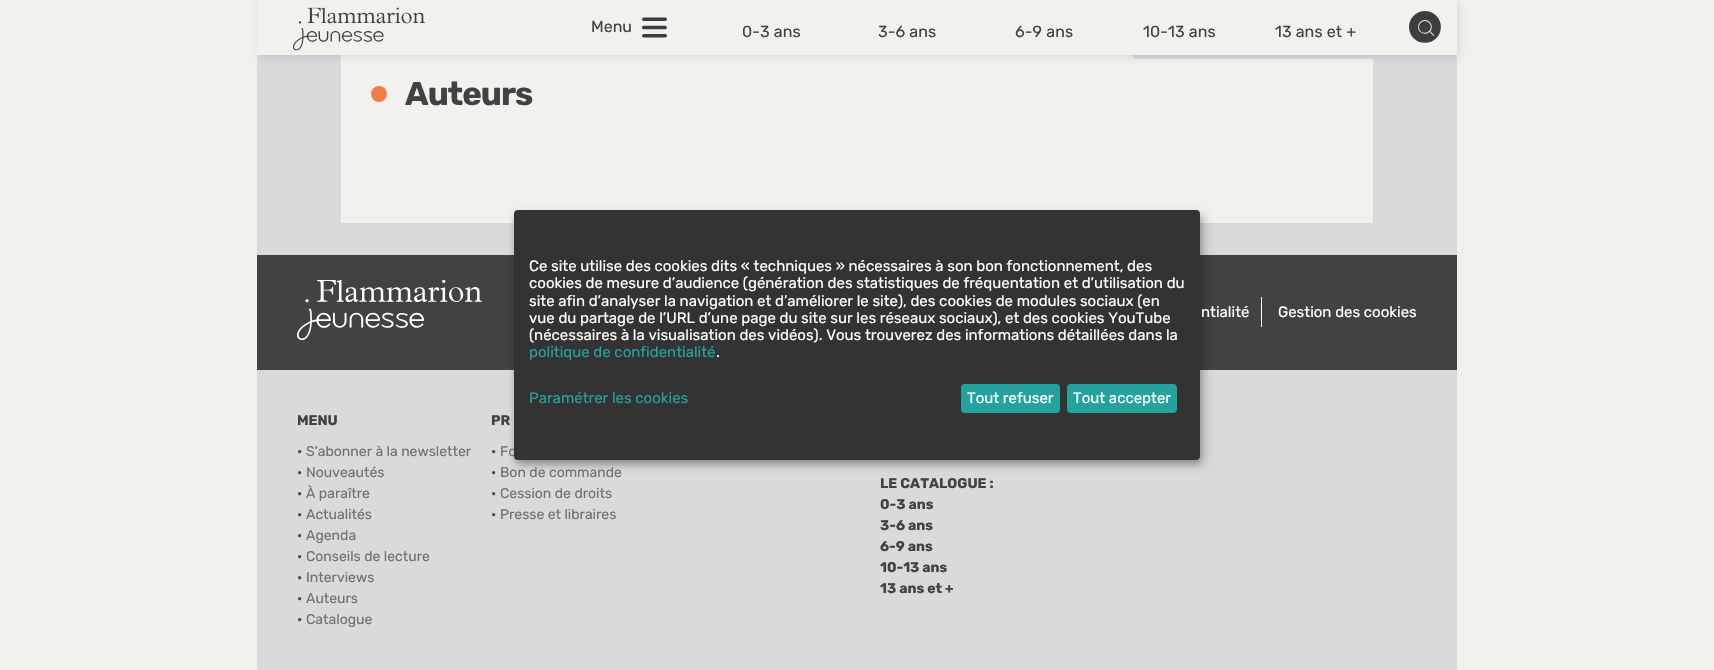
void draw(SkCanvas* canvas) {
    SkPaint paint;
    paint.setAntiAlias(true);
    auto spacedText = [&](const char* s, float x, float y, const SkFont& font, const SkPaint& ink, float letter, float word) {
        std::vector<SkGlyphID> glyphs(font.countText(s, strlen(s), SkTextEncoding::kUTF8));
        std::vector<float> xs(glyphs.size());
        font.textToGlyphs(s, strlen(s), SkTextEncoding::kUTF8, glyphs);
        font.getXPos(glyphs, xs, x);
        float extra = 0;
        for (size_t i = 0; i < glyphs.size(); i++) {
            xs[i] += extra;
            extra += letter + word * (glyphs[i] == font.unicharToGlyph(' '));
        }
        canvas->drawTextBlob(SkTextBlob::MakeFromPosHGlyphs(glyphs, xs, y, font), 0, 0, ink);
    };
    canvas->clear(0xFFF3F1EE);
    paint.setColor(0xFFD9DADB);
    canvas->drawRect(SkRect::MakeXYWH(257, 55, 1200, 200), paint);
    paint.setColor(0xFFF3F1EE);
    canvas->drawRect(SkRect::MakeXYWH(341, 55, 792, 4), paint);
    canvas->drawRect(SkRect::MakeXYWH(341, 59, 1032, 164), paint);
    paint.setColor(0x29424243);
    paint.setMaskFilter(SkMaskFilter::MakeBlur(kNormal_SkBlurStyle, 4));
    canvas->drawRect(SkRect::MakeXYWH(259, 2, 1200, 55), paint);
    paint.setMaskFilter(nullptr);
    paint.setColor(0xFFF3F1EE);
    canvas->drawRect(SkRect::MakeXYWH(257, 0, 1200, 55), paint);
    canvas->drawImageRect(SkImages::DeferredFromEncodedData(SkData::MakeFromFileName("img1.png")), SkRect::MakeXYWH(293, 7, 132, 44), SkSamplingOptions());
    SkFont font1(fontMgr->matchFamilyStyle("Rubik", SkFontStyle::Normal()), 16);
    font1.setSubpixel(true);
    paint.setColor(0xFF424243);
    canvas->drawString("Menu", 591, 32, font1, paint);
    canvas->drawImageRect(SkImages::DeferredFromEncodedData(SkData::MakeFromFileName("img2.png")), SkRect::MakeXYWH(642, 17, 25, 21), SkSamplingOptions());
    spacedText("0-3 ans", 742, 37, font1, paint, 0.1f, 0);
    spacedText("3-6 ans", 878, 37, font1, paint, 0.1f, 0);
    spacedText("6-9 ans", 1015, 37, font1, paint, 0.1f, 0);
    spacedText("10-13 ans", 1143, 37, font1, paint, 0.1f, 0);
    spacedText("13 ans et +", 1275, 37, font1, paint, 0.1f, 0);
    canvas->drawImageRect(SkImages::DeferredFromEncodedData(SkData::MakeFromFileName("img3.png")), SkRect::MakeXYWH(1409, 11, 32, 32), SkSamplingOptions());
    paint.setColor(0xFFF07D4A);
    canvas->drawCircle(379, 94, 8, paint);
    SkFont font2(fontMgr->matchFamilyStyle("Rubik", SkFontStyle::Bold()), 33);
    font2.setSubpixel(true);
    paint.setColor(0xFF424243);
    spacedText("Auteurs", 405, 105, font2, paint, -1, 0);
    canvas->drawRect(SkRect::MakeXYWH(257, 255, 1200, 115), paint);
    paint.setColor(0xFFD9DADB);
    canvas->drawRect(SkRect::MakeXYWH(257, 370, 1200, 300), paint);
    paint.setColor(0x30000000);
    paint.setMaskFilter(SkMaskFilter::MakeBlur(kNormal_SkBlurStyle, 5));
    canvas->drawRoundRect(SkRect::MakeXYWH(519, 215, 686, 250), 4, 4, paint);
    paint.setMaskFilter(nullptr);
    paint.setColor(0x33000000);
    paint.setMaskFilter(SkMaskFilter::MakeBlur(kNormal_SkBlurStyle, 3));
    canvas->drawRoundRect(SkRect::MakeXYWH(514, 214, 686, 250), 4, 4, paint);
    paint.setMaskFilter(nullptr);
    SkFont font3(fontMgr->matchFamilyStyle("Rubik", SkFontStyle::Normal()), 14);
    font3.setSubpixel(true);
    paint.setColor(0xFF707173);
    canvas->drawString("Fo", 500, 456, font3, paint);
    paint.setColor(0xFF333333);
    canvas->drawRoundRect(SkRect::MakeXYWH(514, 210, 686, 250), 4, 4, paint);
    SkFont font4(fontMgr->matchFamilyStyle("Rubik", SkFontStyle::Normal()), 15);
    font4.setSubpixel(true);
    paint.setColor(0xFFFFFFFF);
    canvas->drawString("Ce site utilise des cookies dits « techniques » nécessaires à son bon fonctionnement, des", 529, 271, font4, paint);
    canvas->drawString("cookies de mesure d’audience (génération des statistiques de fréquentation et d’utilisation du", 529, 288, font4, paint);
    canvas->drawString("site afin d’analyser la navigation et d’améliorer le site), des cookies de modules sociaux (en", 529, 306, font4, paint);
    canvas->drawString("vue du partage de l’URL d’une page du site sur les réseaux sociaux), et des cookies YouTube", 529, 323, font4, paint);
    canvas->drawString("(nécessaires à la visualisation des vidéos). Vous trouverez des informations détaillées dans la", 529, 340, font4, paint);
    paint.setColor(0xFF25A29E);
    canvas->drawString("politique de confidentialité", 529, 357, font4, paint);
    paint.setColor(0xFFFFFFFF);
    canvas->drawString(".", 716, 357, font4, paint);
    paint.setColor(0xFF25A29E);
    canvas->drawString("Paramétrer les cookies", 529, 403, font4, paint);
    canvas->drawRoundRect(SkRect::MakeXYWH(961, 384, 99, 29), 4, 4, paint);
    paint.setColor(0xFFFFFFFF);
    canvas->drawString("Tout refuser", 967, 403, font4, paint);
    paint.setColor(0xFF25A29E);
    canvas->drawRoundRect(SkRect::MakeXYWH(1067, 384, 110, 29), 4, 4, paint);
    paint.setColor(0xFFFFFFFF);
    canvas->drawString("Tout accepter", 1073, 403, font4, paint);
    canvas->drawImageRect(SkImages::DeferredFromEncodedData(SkData::MakeFromFileName("img4.png")), SkRect::MakeXYWH(297, 279, 185, 62), SkSamplingOptions());
    canvas->drawRect(SkRect::MakeXYWH(1261, 297, 1, 30), paint);
    canvas->drawString("ntialité", 1201, 317, font4, paint);
    canvas->drawString("Gestion des cookies", 1278, 317, font4, paint);
    SkFont font5(fontMgr->matchFamilyStyle("Rubik", SkFontStyle::Bold()), 14);
    font5.setSubpixel(true);
    paint.setColor(0xFF424243);
    canvas->drawString("MENU", 297, 425, font5, paint);
    canvas->drawString("•", 297, 456, font3, paint);
    paint.setColor(0xFF707173);
    canvas->drawString("S'abonner à la newsletter", 306, 456, font3, paint);
    paint.setColor(0xFF424243);
    canvas->drawString("•", 297, 477, font3, paint);
    paint.setColor(0xFF707173);
    canvas->drawString("Nouveautés", 306, 477, font3, paint);
    paint.setColor(0xFF424243);
    canvas->drawString("•", 297, 498, font3, paint);
    paint.setColor(0xFF707173);
    canvas->drawString("À paraître", 306, 498, font3, paint);
    paint.setColor(0xFF424243);
    canvas->drawString("•", 297, 519, font3, paint);
    paint.setColor(0xFF707173);
    canvas->drawString("Actualités", 306, 519, font3, paint);
    paint.setColor(0xFF424243);
    canvas->drawString("•", 297, 540, font3, paint);
    paint.setColor(0xFF707173);
    canvas->drawString("Agenda", 306, 540, font3, paint);
    paint.setColor(0xFF424243);
    canvas->drawString("•", 297, 561, font3, paint);
    paint.setColor(0xFF707173);
    canvas->drawString("Conseils de lecture", 306, 561, font3, paint);
    paint.setColor(0xFF424243);
    canvas->drawString("•", 297, 582, font3, paint);
    paint.setColor(0xFF707173);
    canvas->drawString("Interviews", 306, 582, font3, paint);
    paint.setColor(0xFF424243);
    canvas->drawString("•", 297, 603, font3, paint);
    paint.setColor(0xFF707173);
    canvas->drawString("Auteurs", 306, 603, font3, paint);
    paint.setColor(0xFF424243);
    canvas->drawString("•", 297, 624, font3, paint);
    paint.setColor(0xFF707173);
    canvas->drawString("Catalogue", 306, 624, font3, paint);
    paint.setColor(0xFF424243);
    canvas->drawString("PR", 491, 425, font5, paint);
    canvas->drawString("•", 491, 456, font3, paint);
    canvas->drawString("•", 491, 477, font3, paint);
    paint.setColor(0xFF707173);
    canvas->drawString("Bon de commande", 500, 477, font3, paint);
    paint.setColor(0xFF424243);
    canvas->drawString("•", 491, 498, font3, paint);
    paint.setColor(0xFF707173);
    canvas->drawString("Cession de droits", 500, 498, font3, paint);
    paint.setColor(0xFF424243);
    canvas->drawString("•", 491, 519, font3, paint);
    paint.setColor(0xFF707173);
    canvas->drawString("Presse et libraires", 500, 519, font3, paint);
    paint.setColor(0xFF424243);
    canvas->drawString("LE CATALOGUE :", 880, 488, font5, paint);
    canvas->drawString("0-3 ans", 880, 509, font5, paint);
    canvas->drawString("3-6 ans", 880, 530, font5, paint);
    canvas->drawString("6-9 ans", 880, 551, font5, paint);
    canvas->drawString("10-13 ans", 880, 572, font5, paint);
    canvas->drawString("13 ans et +", 880, 593, font5, paint);
}
